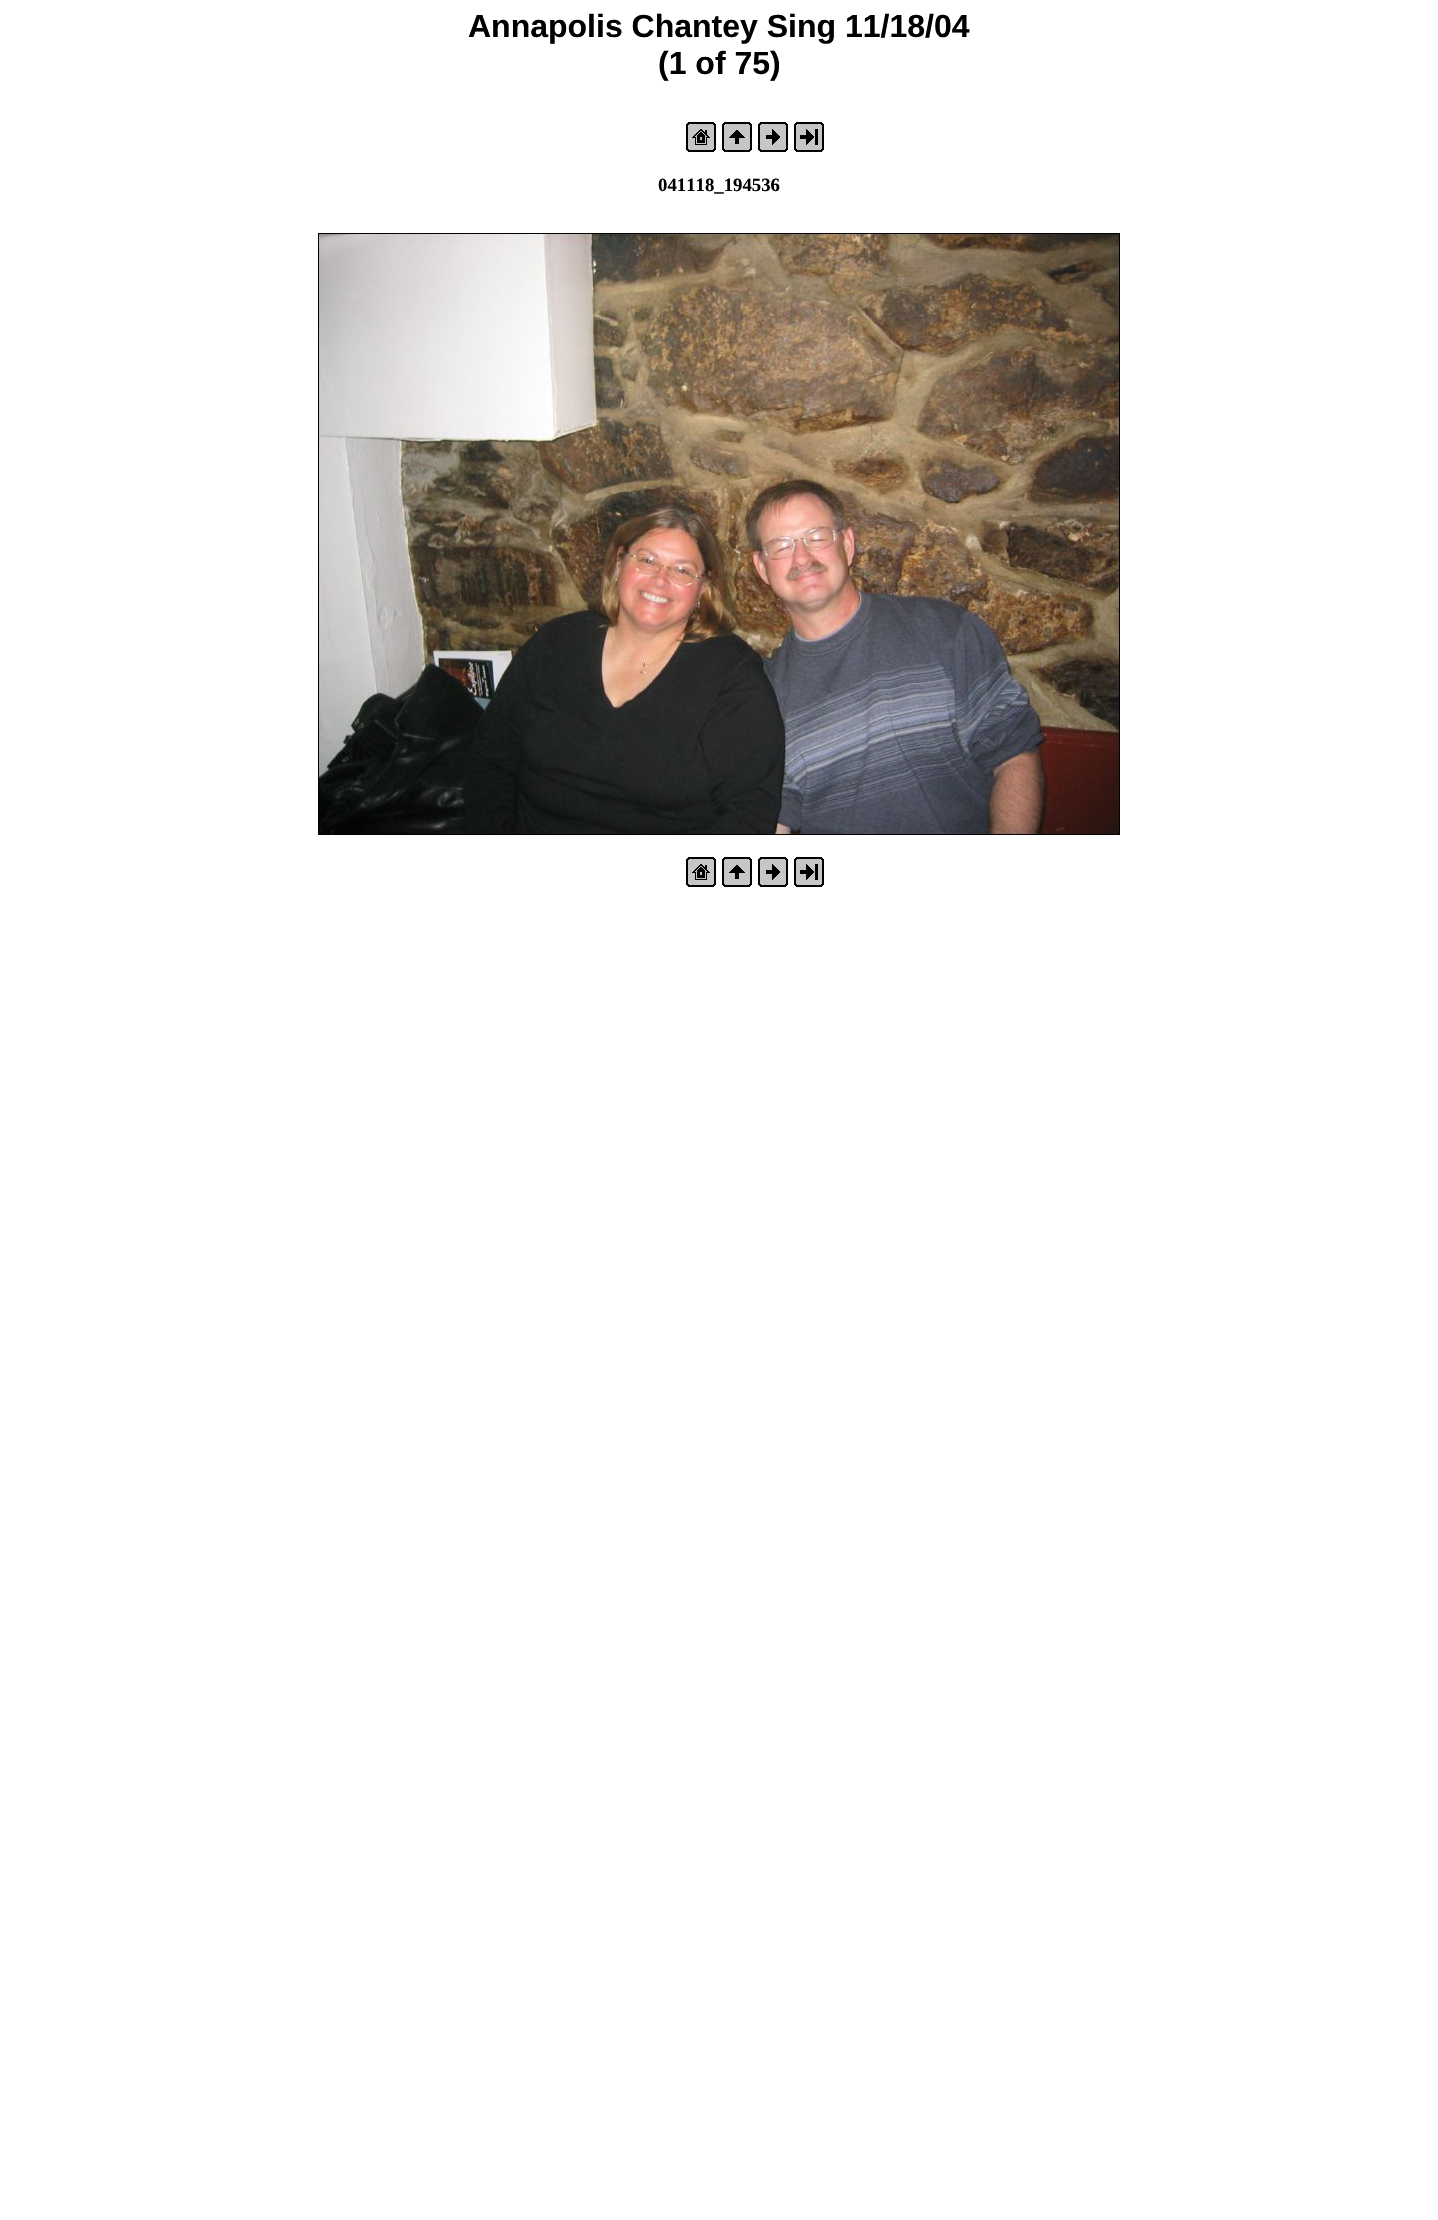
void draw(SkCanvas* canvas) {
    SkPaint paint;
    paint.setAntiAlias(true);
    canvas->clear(0xFFFFFFFF);
    SkFont font1(fontMgr->matchFamilyStyle("Liberation Sans", SkFontStyle::Bold()), 32);
    font1.setSubpixel(true);
    paint.setColor(0xFF000000);
    canvas->drawString("Annapolis Chantey Sing 11/18/04", 468, 37, font1, paint);
    canvas->drawString("(1 of 75)", 658, 74, font1, paint);
    canvas->drawImageRect(SkImages::DeferredFromEncodedData(SkData::MakeFromFileName("img1.png")), SkRect::MakeXYWH(686, 122, 30, 30), SkSamplingOptions());
    canvas->drawImageRect(SkImages::DeferredFromEncodedData(SkData::MakeFromFileName("img2.png")), SkRect::MakeXYWH(722, 122, 30, 30), SkSamplingOptions());
    canvas->drawImageRect(SkImages::DeferredFromEncodedData(SkData::MakeFromFileName("img3.png")), SkRect::MakeXYWH(758, 122, 30, 30), SkSamplingOptions());
    canvas->drawImageRect(SkImages::DeferredFromEncodedData(SkData::MakeFromFileName("img4.png")), SkRect::MakeXYWH(794, 122, 30, 30), SkSamplingOptions());
    SkFont font2(fontMgr->matchFamilyStyle("Liberation Serif", SkFontStyle::Bold()), 18.75f);
    font2.setSubpixel(true);
    canvas->drawString("041118_194536", 658, 191, font2, paint);
    canvas->drawImageRect(SkImages::DeferredFromEncodedData(SkData::MakeFromFileName("img5.png")), SkRect::MakeXYWH(318, 233, 802, 602), SkSamplingOptions());
    canvas->drawImageRect(SkImages::DeferredFromEncodedData(SkData::MakeFromFileName("img1.png")), SkRect::MakeXYWH(686, 857, 30, 30), SkSamplingOptions());
    canvas->drawImageRect(SkImages::DeferredFromEncodedData(SkData::MakeFromFileName("img2.png")), SkRect::MakeXYWH(722, 857, 30, 30), SkSamplingOptions());
    canvas->drawImageRect(SkImages::DeferredFromEncodedData(SkData::MakeFromFileName("img3.png")), SkRect::MakeXYWH(758, 857, 30, 30), SkSamplingOptions());
    canvas->drawImageRect(SkImages::DeferredFromEncodedData(SkData::MakeFromFileName("img4.png")), SkRect::MakeXYWH(794, 857, 30, 30), SkSamplingOptions());
}
